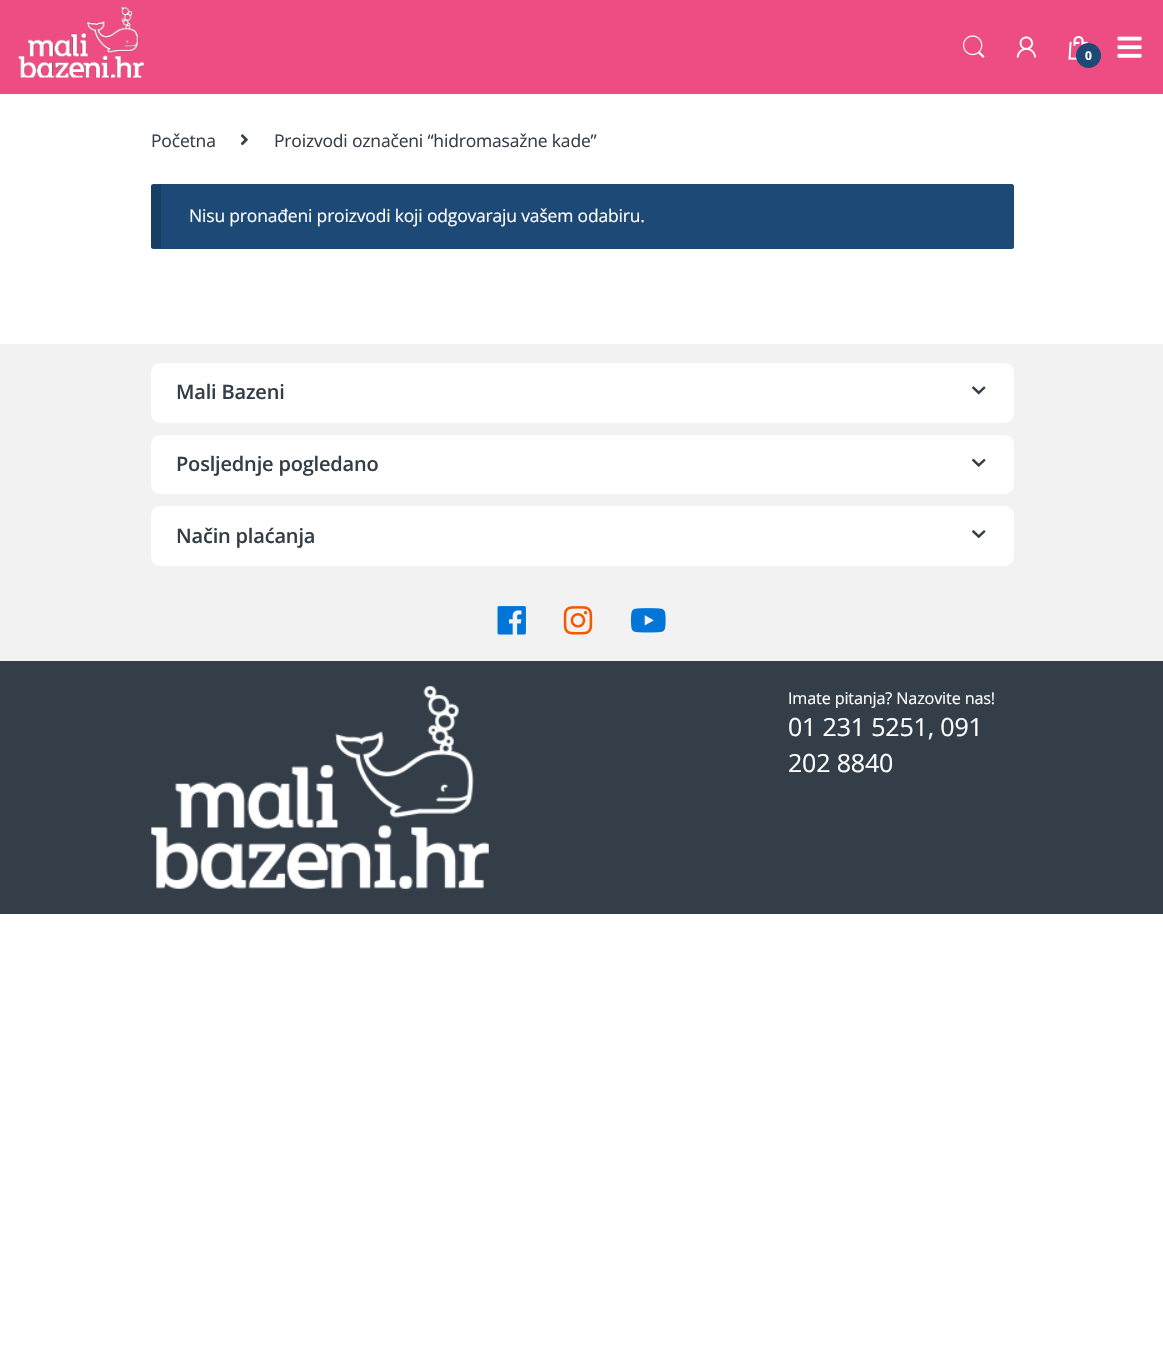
void draw(SkCanvas* canvas) {
    SkPaint paint;
    paint.setAntiAlias(true);
    auto spacedText = [&](const char* s, float x, float y, const SkFont& font, const SkPaint& ink, float letter, float word) {
        std::vector<SkGlyphID> glyphs(font.countText(s, strlen(s), SkTextEncoding::kUTF8));
        std::vector<float> xs(glyphs.size());
        font.textToGlyphs(s, strlen(s), SkTextEncoding::kUTF8, glyphs);
        font.getXPos(glyphs, xs, x);
        float extra = 0;
        for (size_t i = 0; i < glyphs.size(); i++) {
            xs[i] += extra;
            extra += letter + word * (glyphs[i] == font.unicharToGlyph(' '));
        }
        canvas->drawTextBlob(SkTextBlob::MakeFromPosHGlyphs(glyphs, xs, y, font), 0, 0, ink);
    };
    canvas->clear(0xFFFFFFFF);
    paint.setColor(0xFFEE4D83);
    canvas->drawRect(SkRect::MakeXYWH(0, 0, 1163, 94), paint);
    canvas->drawImageRect(SkImages::DeferredFromEncodedData(SkData::MakeFromFileName("img1.png")), SkRect::MakeXYWH(18, 7, 126, 71), SkSamplingOptions());
    canvas->drawImageRect(SkImages::DeferredFromEncodedData(SkData::MakeFromFileName("img2.png")), SkRect::MakeXYWH(963, 35, 22, 23), SkSamplingOptions());
    canvas->drawImageRect(SkImages::DeferredFromEncodedData(SkData::MakeFromFileName("img3.png")), SkRect::MakeXYWH(1016, 36, 20, 22), SkSamplingOptions());
    canvas->drawImageRect(SkImages::DeferredFromEncodedData(SkData::MakeFromFileName("img4.png")), SkRect::MakeXYWH(1068, 36, 20, 24), SkSamplingOptions());
    paint.setColor(0xFF1C4975);
    canvas->drawCircle(1088.5f, 55.5f, 12.5f, paint);
    SkFont font1(fontMgr->matchFamilyStyle("Open Sans", SkFontStyle::Bold()), 12);
    font1.setSubpixel(true);
    paint.setColor(0xFFFFFFFF);
    spacedText("0", 1085, 60, font1, paint, -0.18f, 0);
    canvas->drawImageRect(SkImages::DeferredFromEncodedData(SkData::MakeFromFileName("img5.png")), SkRect::MakeXYWH(1117, 36, 25, 22), SkSamplingOptions());
    SkFont font2(fontMgr->matchFamilyStyle("Open Sans", SkFontStyle::Normal()), 17.5f);
    font2.setSubpixel(true);
    paint.setColor(0xFF333E48);
    spacedText("Početna", 151, 147, font2, paint, -0.18f, 0);
    canvas->drawImageRect(SkImages::DeferredFromEncodedData(SkData::MakeFromFileName("img6.png")), SkRect::MakeXYWH(240, 134, 8, 12), SkSamplingOptions());
    spacedText("Proizvodi označeni “hidromasažne kade”", 274, 147, font2, paint, -0.18f, 0);
    paint.setColor(0xFF1C4975);
    canvas->drawRoundRect(SkRect::MakeXYWH(151, 184, 863, 65), 2.5f, 2.5f, paint);
    paint.setColor(0x26000000);
    canvas->drawRect(SkRect::MakeXYWH(151, 185, 10, 63), paint);
    paint.setColor(0xFFFFFFFF);
    spacedText("Nisu pronađeni proizvodi koji odgovaraju vašem odabiru.", 189, 222, font2, paint, -0.18f, 0);
    paint.setColor(0xFFF2F2F2);
    canvas->drawRect(SkRect::MakeXYWH(0, 344, 1163, 317), paint);
    paint.setColor(0xFFFFFFFF);
    canvas->drawRoundRect(SkRect::MakeXYWH(151, 363, 863, 60), 9, 9, paint);
    SkFont font3(fontMgr->matchFamilyStyle("Open Sans", SkFontStyle(600, SkFontStyle::kNormal_Width, SkFontStyle::kUpright_Slant)), 20);
    font3.setSubpixel(true);
    paint.setColor(0xFF333E48);
    spacedText("Mali Bazeni", 176, 399, font3, paint, -0.18f, 0);
    canvas->drawImageRect(SkImages::DeferredFromEncodedData(SkData::MakeFromFileName("img7.png")), SkRect::MakeXYWH(972, 386, 14, 9), SkSamplingOptions());
    paint.setColor(0xFFFFFFFF);
    canvas->drawRoundRect(SkRect::MakeXYWH(151, 435, 863, 59), 9, 9, paint);
    paint.setColor(0xFF333E48);
    spacedText("Posljednje pogledano", 176, 471, font3, paint, -0.18f, 0);
    canvas->drawImageRect(SkImages::DeferredFromEncodedData(SkData::MakeFromFileName("img8.png")), SkRect::MakeXYWH(972, 458, 14, 9), SkSamplingOptions());
    paint.setColor(0xFFFFFFFF);
    canvas->drawRoundRect(SkRect::MakeXYWH(151, 506, 863, 60), 9, 9, paint);
    paint.setColor(0xFF333E48);
    spacedText("Način plaćanja", 176, 543, font3, paint, -0.18f, 0);
    canvas->drawImageRect(SkImages::DeferredFromEncodedData(SkData::MakeFromFileName("img9.png")), SkRect::MakeXYWH(972, 530, 14, 9), SkSamplingOptions());
    canvas->drawImageRect(SkImages::DeferredFromEncodedData(SkData::MakeFromFileName("img10.png")), SkRect::MakeXYWH(497, 606, 29, 29), SkSamplingOptions());
    canvas->drawImageRect(SkImages::DeferredFromEncodedData(SkData::MakeFromFileName("img11.png")), SkRect::MakeXYWH(563, 606, 30, 29), SkSamplingOptions());
    canvas->drawImageRect(SkImages::DeferredFromEncodedData(SkData::MakeFromFileName("img12.png")), SkRect::MakeXYWH(630, 608, 36, 25), SkSamplingOptions());
    canvas->drawRect(SkRect::MakeXYWH(0, 661, 1163, 253), paint);
    canvas->drawImageRect(SkImages::DeferredFromEncodedData(SkData::MakeFromFileName("img13.png")), SkRect::MakeXYWH(151, 686, 338, 203), SkSamplingOptions());
    SkFont font4(fontMgr->matchFamilyStyle("Open Sans", SkFontStyle::Normal()), 16.25f);
    font4.setSubpixel(true);
    paint.setColor(0xFFFFFFFF);
    spacedText("Imate pitanja? Nazovite nas!", 788, 704, font4, paint, -0.18f, 0);
    SkFont font5(fontMgr->matchFamilyStyle("Open Sans", SkFontStyle::Normal()), 25);
    font5.setSubpixel(true);
    spacedText("01 231 5251, 091", 788, 736, font5, paint, -0.18f, 0);
    spacedText("202 8840", 788, 772, font5, paint, -0.18f, 0);
}
